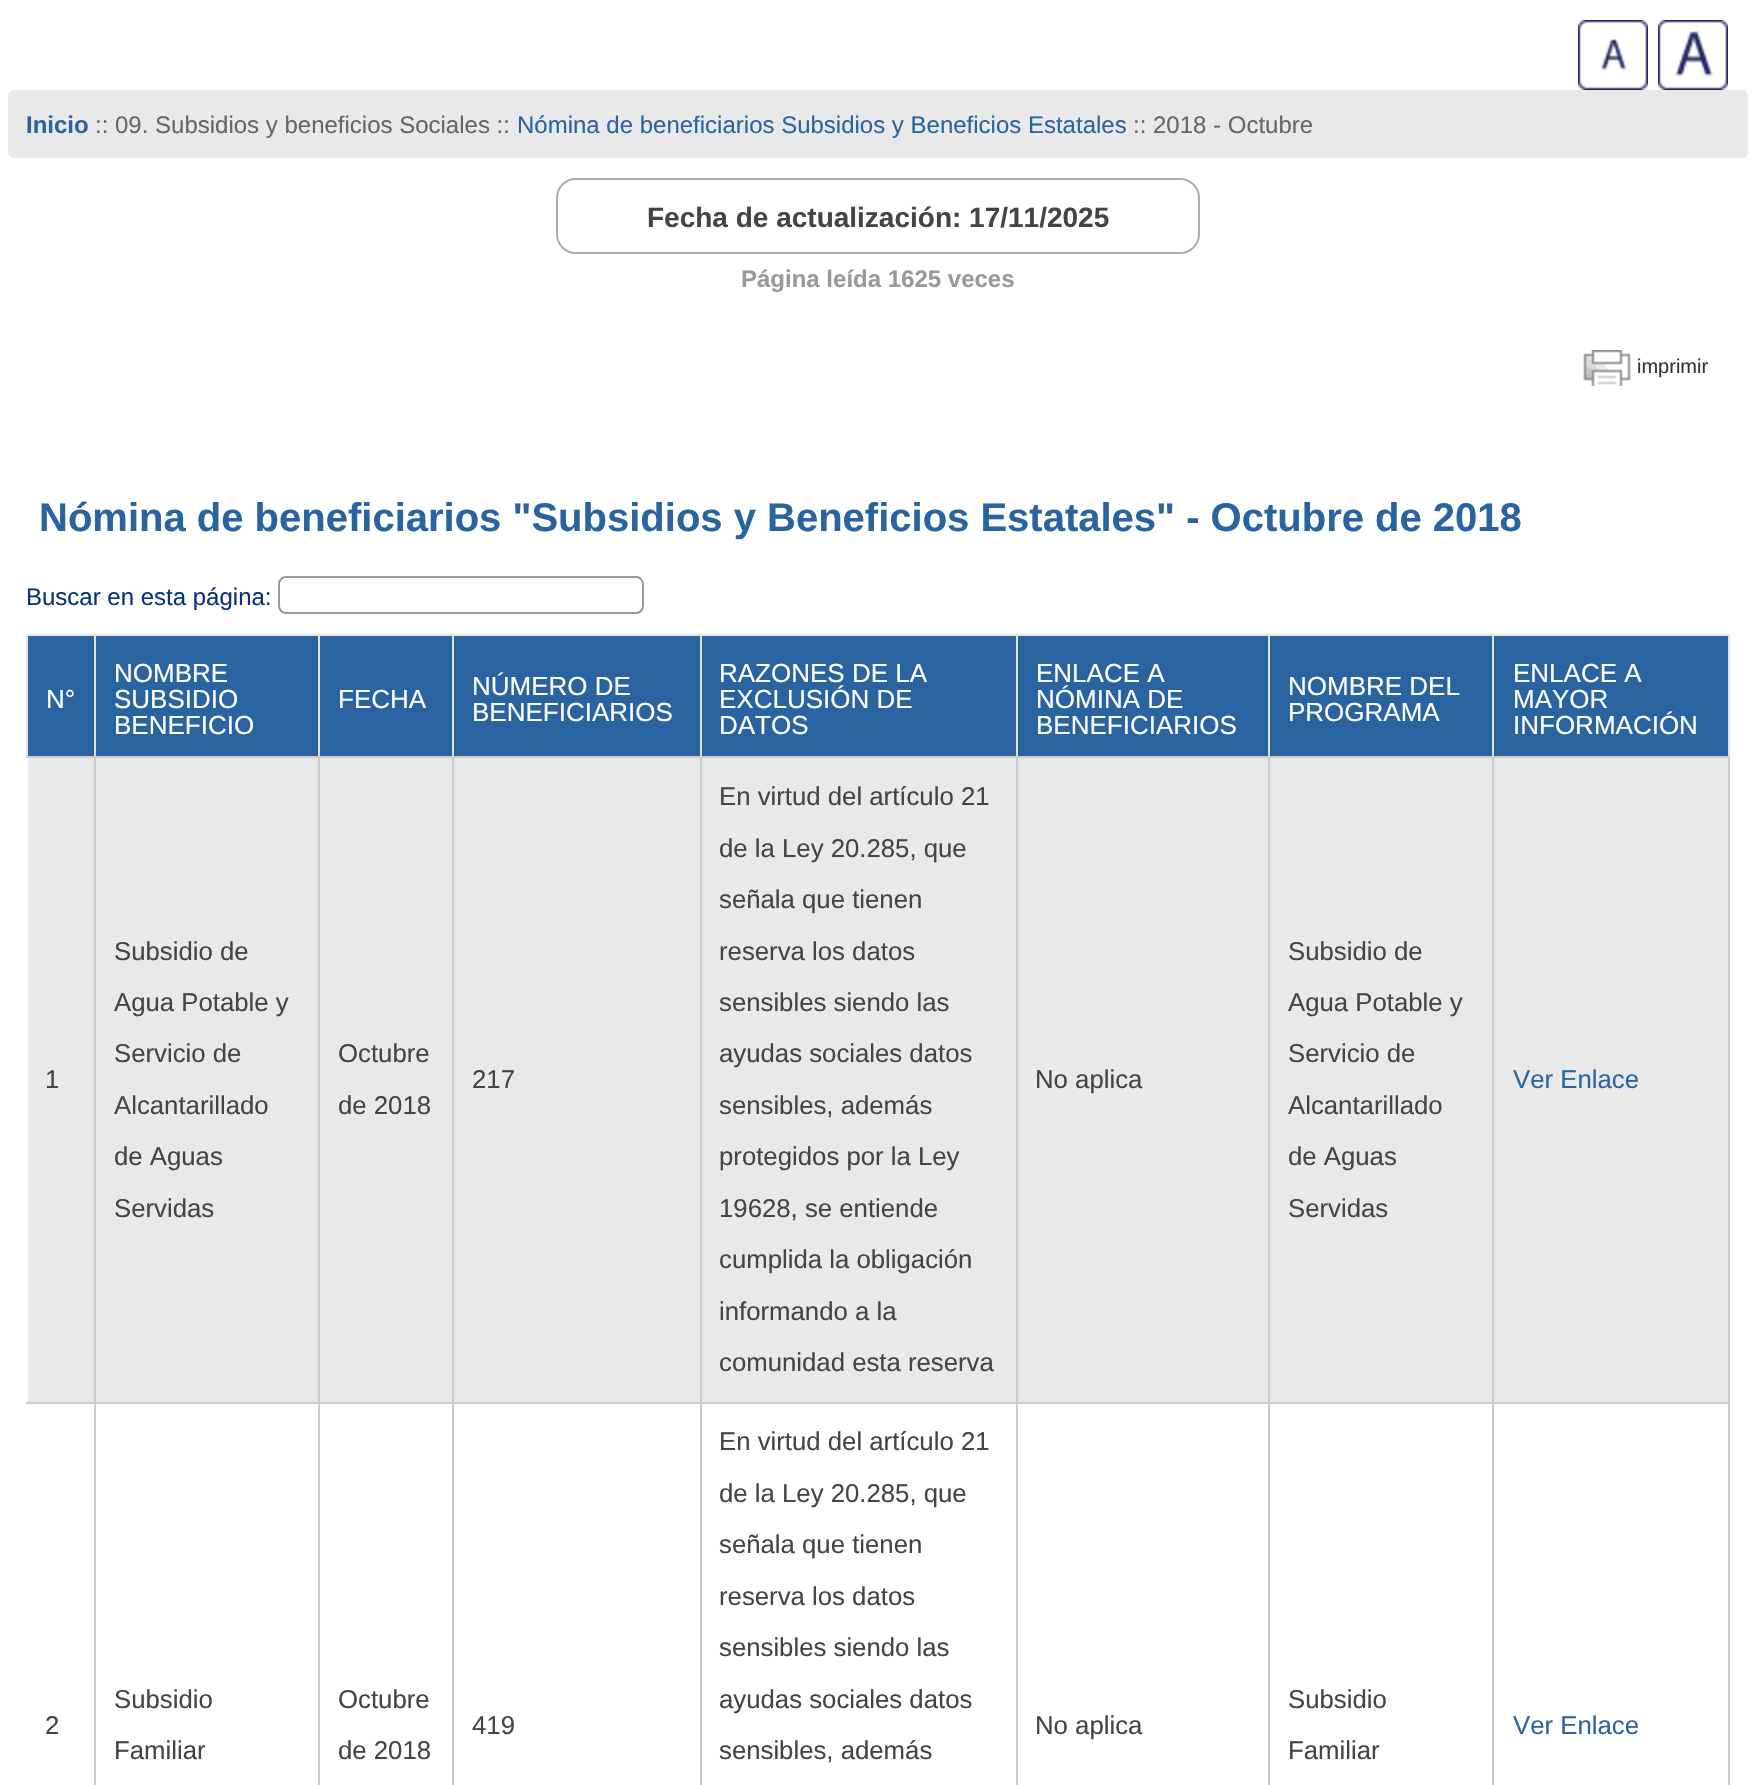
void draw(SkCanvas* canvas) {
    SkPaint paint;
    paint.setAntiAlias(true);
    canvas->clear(0xFFFFFFFF);
    canvas->drawImageRect(SkImages::DeferredFromEncodedData(SkData::MakeFromFileName("img1.png")), SkRect::MakeXYWH(1578, 20, 70, 70), SkSamplingOptions());
    canvas->drawImageRect(SkImages::DeferredFromEncodedData(SkData::MakeFromFileName("img2.png")), SkRect::MakeXYWH(1658, 20, 70, 70), SkSamplingOptions());
    paint.setColor(0xFFE9E9E9);
    canvas->drawRoundRect(SkRect::MakeXYWH(8, 90, 1740, 68), 6, 6, paint);
    SkFont font1(fontMgr->matchFamilyStyle("Liberation Sans", SkFontStyle::Bold()), 24);
    font1.setSubpixel(true);
    paint.setColor(0xFF2964A1);
    canvas->drawString("Inicio", 26, 133, font1, paint);
    SkFont font2(fontMgr->matchFamilyStyle("Liberation Sans", SkFontStyle::Normal()), 24);
    font2.setSubpixel(true);
    paint.setColor(0xFF666666);
    canvas->drawString(":: 09. Subsidios y beneficios Sociales ::", 95, 133, font2, paint);
    paint.setColor(0xFF2964A1);
    canvas->drawString("Nómina de beneficiarios Subsidios y Beneficios Estatales", 517, 133, font2, paint);
    paint.setColor(0xFF666666);
    canvas->drawString(":: 2018 - Octubre", 1133, 133, font2, paint);
    paint.setStyle(SkPaint::kStroke_Style);
    paint.setStrokeWidth(2);
    paint.setColor(0xFFACACAC);
    canvas->drawRoundRect(SkRect::MakeXYWH(557, 179, 642, 74), 19, 19, paint);
    SkFont font3(fontMgr->matchFamilyStyle("Liberation Sans", SkFontStyle::Bold()), 28);
    font3.setSubpixel(true);
    paint.setStyle(SkPaint::kFill_Style);
    paint.setColor(0xFF444444);
    canvas->drawString("Fecha de actualización: 17/11/2025", 647, 227, font3, paint);
    paint.setColor(0xFF999999);
    canvas->drawString("Página leída 1625 veces", 741, 287, font1, paint);
    canvas->drawImageRect(SkImages::DeferredFromEncodedData(SkData::MakeFromFileName("img3.png")), SkRect::MakeXYWH(1583, 350, 48, 36), SkSamplingOptions());
    SkFont font4(fontMgr->matchFamilyStyle("Liberation Sans", SkFontStyle::Normal()), 20);
    font4.setSubpixel(true);
    paint.setColor(0xFF333333);
    canvas->drawString("imprimir", 1637, 373, font4, paint);
    SkFont font5(fontMgr->matchFamilyStyle("Liberation Sans", SkFontStyle::Bold()), 40);
    font5.setSubpixel(true);
    paint.setColor(0xFF2964A1);
    canvas->drawString("Nómina de beneficiarios \"Subsidios y Beneficios Estatales\" - Octubre de 2018", 39, 531, font5, paint);
    paint.setColor(0xFF083476);
    canvas->drawString("Buscar en esta página:", 26, 605, font2, paint);
    paint.setStyle(SkPaint::kStroke_Style);
    paint.setColor(0xFF999999);
    canvas->drawRoundRect(SkRect::MakeXYWH(279, 577, 364, 36), 7, 7, paint);
    paint.setStyle(SkPaint::kFill_Style);
    paint.setColor(0xFFE5E5E4);
    canvas->drawRect(SkRect::MakeXYWH(26, 634, 1704, 2), paint);
    canvas->drawRect(SkRect::MakeXYWH(26, 634, 2, 124), paint);
    paint.setColor(0xFF2964A1);
    canvas->drawRect(SkRect::MakeXYWH(28, 636, 66, 120), paint);
    paint.setColor(0xFFCCCCCC);
    canvas->drawRect(SkRect::MakeXYWH(26, 1402, 1704, 2), paint);
    canvas->drawRect(SkRect::MakeXYWH(1728, 756, 2, 1029), paint);
    paint.setColor(0xFFE4E1DE);
    canvas->drawRect(SkRect::MakeXYWH(1728, 634, 2, 124), paint);
    paint.setColor(0xFFE9E9E9);
    canvas->drawRect(SkRect::MakeXYWH(28, 758, 1700, 644), paint);
    paint.setColor(0xFFCCCCCC);
    canvas->drawRect(SkRect::MakeXYWH(1492, 756, 2, 1029), paint);
    canvas->drawRect(SkRect::MakeXYWH(1492, 756, 238, 2), paint);
    paint.setColor(0xFFE4E1DE);
    canvas->drawRect(SkRect::MakeXYWH(1492, 634, 2, 124), paint);
    paint.setColor(0xFFCCCCCC);
    canvas->drawRect(SkRect::MakeXYWH(1268, 756, 2, 1029), paint);
    canvas->drawRect(SkRect::MakeXYWH(1268, 756, 226, 2), paint);
    paint.setColor(0xFFE4E1DE);
    canvas->drawRect(SkRect::MakeXYWH(1268, 634, 2, 124), paint);
    paint.setColor(0xFFCCCCCC);
    canvas->drawRect(SkRect::MakeXYWH(1016, 756, 2, 1029), paint);
    canvas->drawRect(SkRect::MakeXYWH(1016, 756, 254, 2), paint);
    paint.setColor(0xFFE4E1DE);
    canvas->drawRect(SkRect::MakeXYWH(1016, 634, 2, 124), paint);
    paint.setColor(0xFFCCCCCC);
    canvas->drawRect(SkRect::MakeXYWH(700, 756, 2, 1029), paint);
    canvas->drawRect(SkRect::MakeXYWH(700, 756, 318, 2), paint);
    paint.setColor(0xFFE4E1DE);
    canvas->drawRect(SkRect::MakeXYWH(700, 634, 2, 124), paint);
    paint.setColor(0xFFCCCCCC);
    canvas->drawRect(SkRect::MakeXYWH(452, 756, 2, 1029), paint);
    canvas->drawRect(SkRect::MakeXYWH(452, 756, 250, 2), paint);
    paint.setColor(0xFFE4E1DE);
    canvas->drawRect(SkRect::MakeXYWH(452, 634, 2, 124), paint);
    paint.setColor(0xFFCCCCCC);
    canvas->drawRect(SkRect::MakeXYWH(318, 756, 2, 1029), paint);
    canvas->drawRect(SkRect::MakeXYWH(318, 756, 136, 2), paint);
    paint.setColor(0xFFE4E1DE);
    canvas->drawRect(SkRect::MakeXYWH(318, 634, 2, 124), paint);
    paint.setColor(0xFFCCCCCC);
    canvas->drawRect(SkRect::MakeXYWH(94, 756, 2, 1029), paint);
    canvas->drawRect(SkRect::MakeXYWH(94, 756, 226, 2), paint);
    paint.setColor(0xFFE4E1DE);
    canvas->drawRect(SkRect::MakeXYWH(94, 634, 2, 124), paint);
    paint.setColor(0xFFCCCCCC);
    canvas->drawRect(SkRect::MakeXYWH(26, 756, 70, 2), paint);
    SkFont font6(fontMgr->matchFamilyStyle("Liberation Sans", SkFontStyle::Normal()), 26);
    font6.setSubpixel(true);
    paint.setColor(0xFFFFFFFF);
    canvas->drawString("N°", 46, 708, font6, paint);
    paint.setColor(0xFF2964A1);
    canvas->drawRect(SkRect::MakeXYWH(96, 636, 222, 120), paint);
    paint.setColor(0xFFFFFFFF);
    canvas->drawString("NOMBRE", 114, 682, font6, paint);
    canvas->drawString("SUBSIDIO", 114, 708, font6, paint);
    canvas->drawString("BENEFICIO", 114, 734, font6, paint);
    paint.setColor(0xFF2964A1);
    canvas->drawRect(SkRect::MakeXYWH(320, 636, 132, 120), paint);
    paint.setColor(0xFFFFFFFF);
    canvas->drawString("FECHA", 338, 708, font6, paint);
    paint.setColor(0xFF2964A1);
    canvas->drawRect(SkRect::MakeXYWH(454, 636, 246, 120), paint);
    paint.setColor(0xFFFFFFFF);
    canvas->drawString("NÚMERO DE", 472, 695, font6, paint);
    canvas->drawString("BENEFICIARIOS", 472, 721, font6, paint);
    paint.setColor(0xFF2964A1);
    canvas->drawRect(SkRect::MakeXYWH(702, 636, 314, 120), paint);
    paint.setColor(0xFFFFFFFF);
    canvas->drawString("RAZONES DE LA", 719, 682, font6, paint);
    canvas->drawString("EXCLUSIÓN DE", 719, 708, font6, paint);
    canvas->drawString("DATOS", 719, 734, font6, paint);
    paint.setColor(0xFF2964A1);
    canvas->drawRect(SkRect::MakeXYWH(1018, 636, 250, 120), paint);
    paint.setColor(0xFFFFFFFF);
    canvas->drawString("ENLACE A", 1036, 682, font6, paint);
    canvas->drawString("NÓMINA DE", 1036, 708, font6, paint);
    canvas->drawString("BENEFICIARIOS", 1036, 734, font6, paint);
    paint.setColor(0xFF2964A1);
    canvas->drawRect(SkRect::MakeXYWH(1270, 636, 222, 120), paint);
    paint.setColor(0xFFFFFFFF);
    canvas->drawString("NOMBRE DEL", 1288, 695, font6, paint);
    canvas->drawString("PROGRAMA", 1288, 721, font6, paint);
    paint.setColor(0xFF2964A1);
    canvas->drawRect(SkRect::MakeXYWH(1494, 636, 234, 120), paint);
    paint.setColor(0xFFFFFFFF);
    canvas->drawString("ENLACE A", 1513, 682, font6, paint);
    canvas->drawString("MAYOR", 1513, 708, font6, paint);
    canvas->drawString("INFORMACIÓN", 1513, 734, font6, paint);
    SkFont font7(fontMgr->matchFamilyStyle("Liberation Sans", SkFontStyle::Normal()), 25.75f);
    font7.setSubpixel(true);
    paint.setColor(0xFF444444);
    canvas->drawString("1", 45, 1088, font7, paint);
    canvas->drawString("Subsidio de", 114, 960, font7, paint);
    canvas->drawString("Agua Potable y", 114, 1011, font7, paint);
    canvas->drawString("Servicio de", 114, 1062, font7, paint);
    canvas->drawString("Alcantarillado", 114, 1114, font7, paint);
    canvas->drawString("de Aguas", 114, 1165, font7, paint);
    canvas->drawString("Servidas", 114, 1217, font7, paint);
    canvas->drawString("Octubre", 338, 1062, font7, paint);
    canvas->drawString("de 2018", 338, 1114, font7, paint);
    canvas->drawString("217", 472, 1088, font7, paint);
    canvas->drawString("En virtud del artículo 21", 719, 805, font7, paint);
    canvas->drawString("de la Ley 20.285, que", 719, 857, font7, paint);
    canvas->drawString("señala que tienen", 719, 908, font7, paint);
    canvas->drawString("reserva los datos", 719, 960, font7, paint);
    canvas->drawString("sensibles siendo las", 719, 1011, font7, paint);
    canvas->drawString("ayudas sociales datos", 719, 1062, font7, paint);
    canvas->drawString("sensibles, además", 719, 1114, font7, paint);
    canvas->drawString("protegidos por la Ley", 719, 1165, font7, paint);
    canvas->drawString("19628, se entiende", 719, 1217, font7, paint);
    canvas->drawString("cumplida la obligación", 719, 1268, font7, paint);
    canvas->drawString("informando a la", 719, 1320, font7, paint);
    canvas->drawString("comunidad esta reserva", 719, 1371, font7, paint);
    canvas->drawString("No aplica", 1035, 1088, font7, paint);
    canvas->drawString("Subsidio de", 1288, 960, font7, paint);
    canvas->drawString("Agua Potable y", 1288, 1011, font7, paint);
    canvas->drawString("Servicio de", 1288, 1062, font7, paint);
    canvas->drawString("Alcantarillado", 1288, 1114, font7, paint);
    canvas->drawString("de Aguas", 1288, 1165, font7, paint);
    canvas->drawString("Servidas", 1288, 1217, font7, paint);
    paint.setColor(0xFF2964A1);
    canvas->drawString("Ver Enlace", 1513, 1088, font7, paint);
    paint.setColor(0xFF444444);
    canvas->drawString("2", 45, 1734, font7, paint);
    canvas->drawString("Subsidio", 114, 1708, font7, paint);
    canvas->drawString("Familiar", 114, 1759, font7, paint);
    canvas->drawString("Octubre", 338, 1708, font7, paint);
    canvas->drawString("de 2018", 338, 1759, font7, paint);
    canvas->drawString("419", 472, 1734, font7, paint);
    canvas->drawString("En virtud del artículo 21", 719, 1450, font7, paint);
    canvas->drawString("de la Ley 20.285, que", 719, 1502, font7, paint);
    canvas->drawString("señala que tienen", 719, 1553, font7, paint);
    canvas->drawString("reserva los datos", 719, 1605, font7, paint);
    canvas->drawString("sensibles siendo las", 719, 1656, font7, paint);
    canvas->drawString("ayudas sociales datos", 719, 1708, font7, paint);
    canvas->drawString("sensibles, además", 719, 1759, font7, paint);
    canvas->drawString("No aplica", 1035, 1734, font7, paint);
    canvas->drawString("Subsidio", 1288, 1708, font7, paint);
    canvas->drawString("Familiar", 1288, 1759, font7, paint);
    paint.setColor(0xFF2964A1);
    canvas->drawString("Ver Enlace", 1513, 1734, font7, paint);
}
